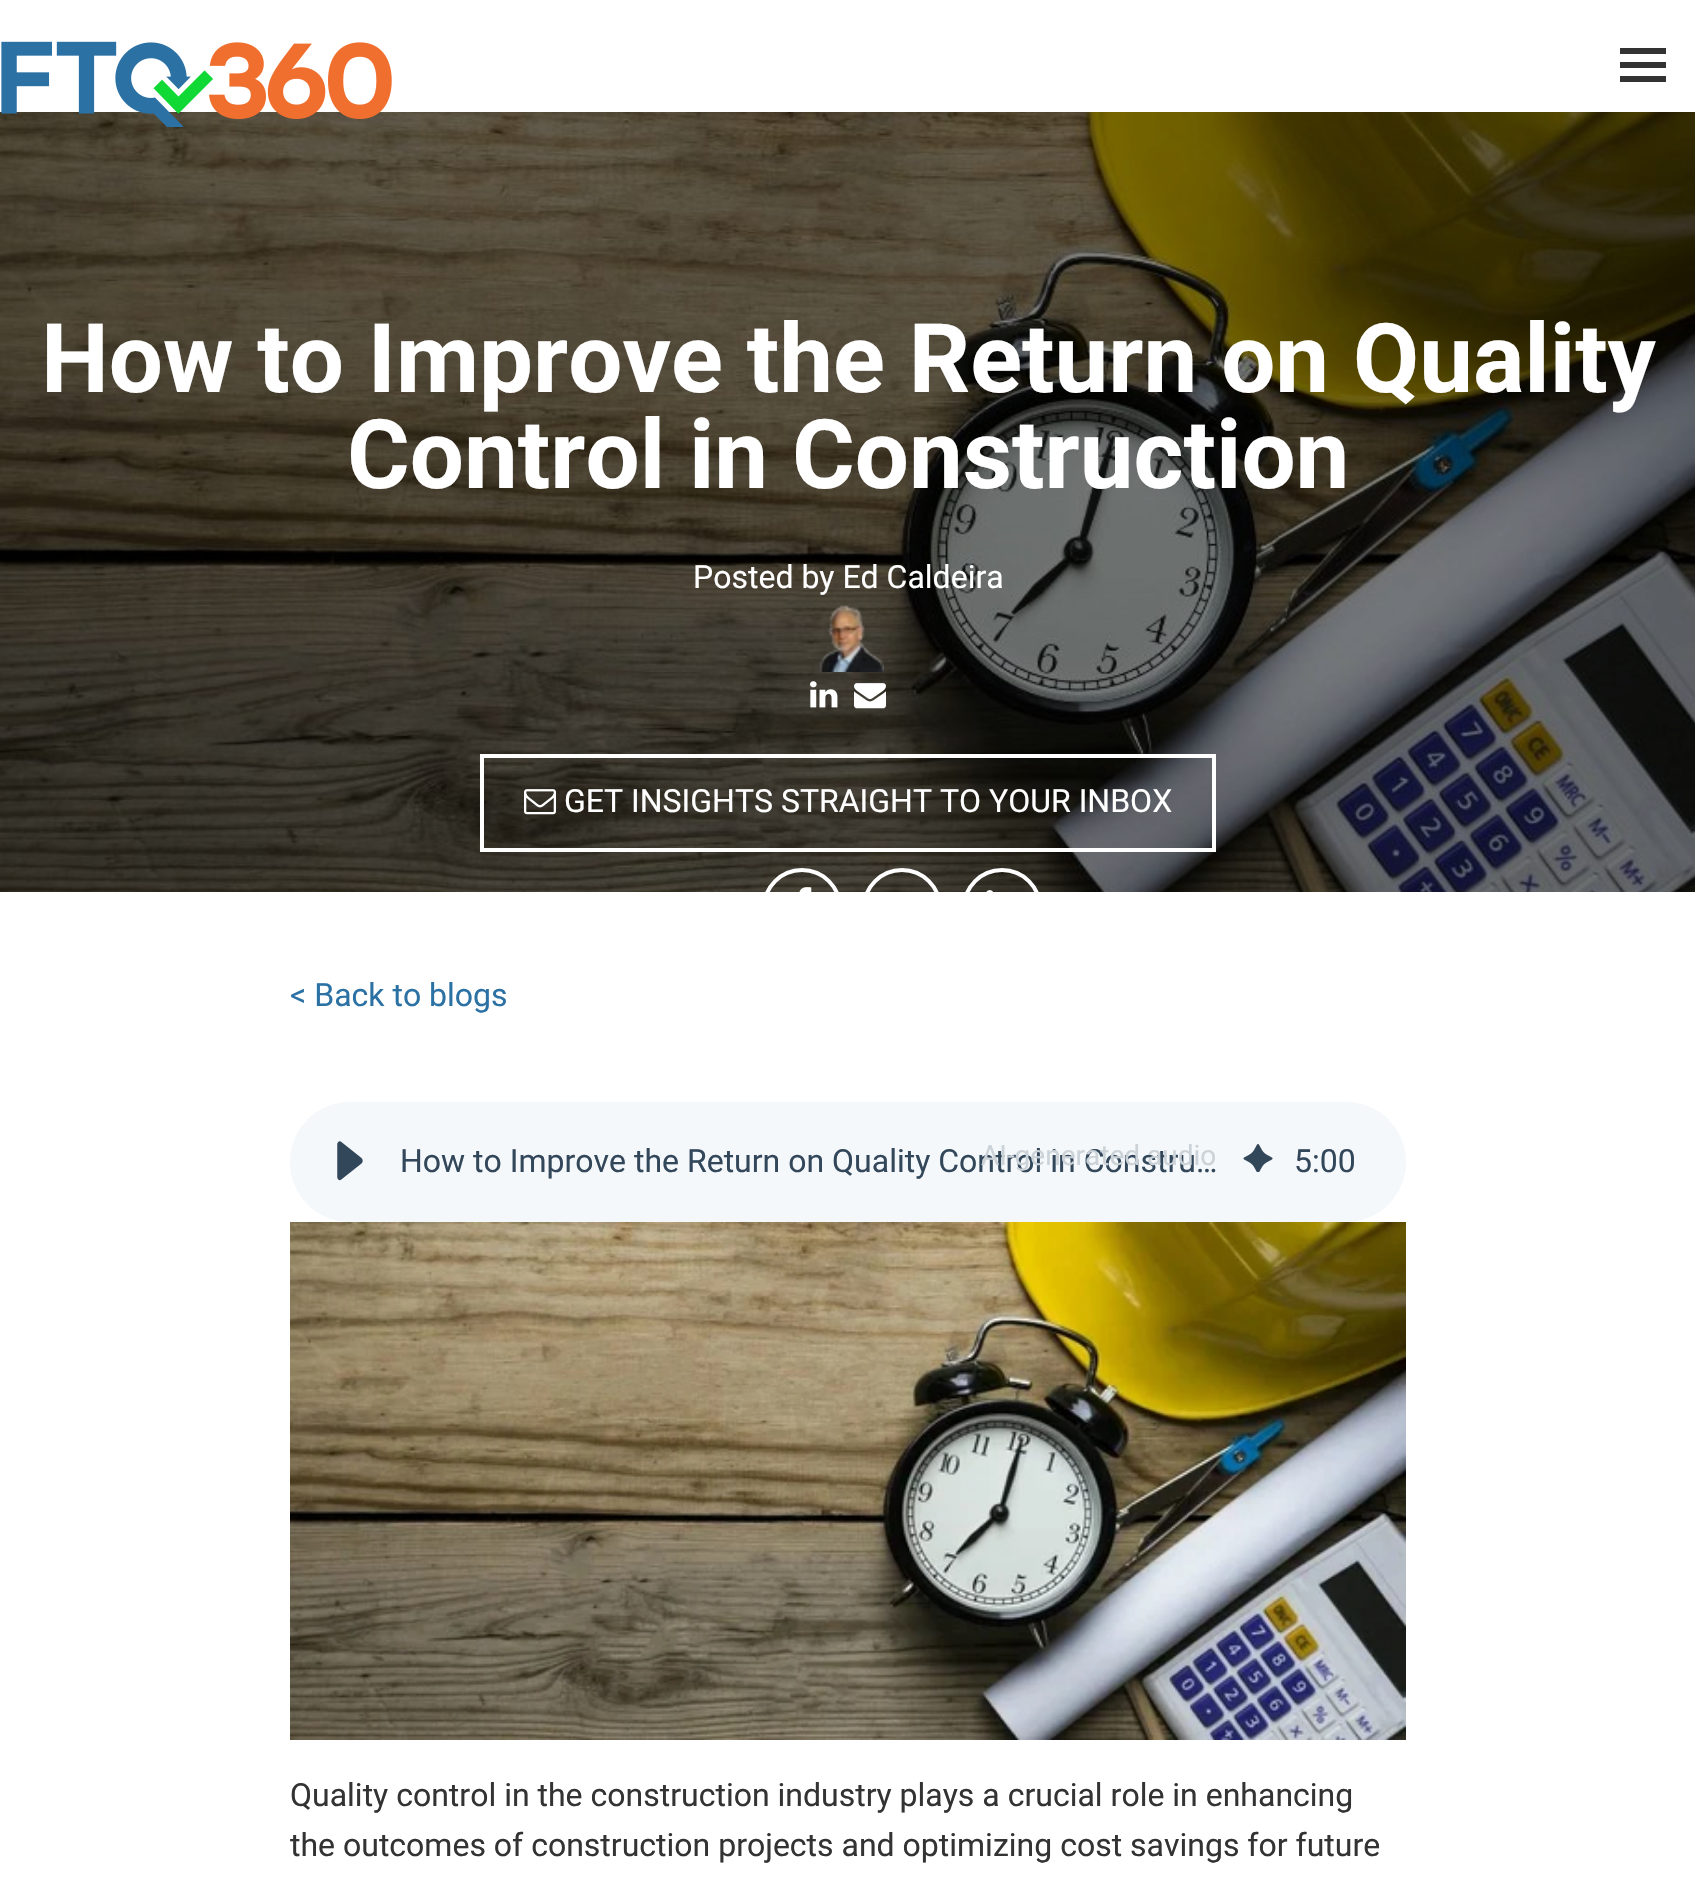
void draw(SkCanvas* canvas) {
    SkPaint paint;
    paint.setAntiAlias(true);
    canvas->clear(0xFFFFFFFF);
    canvas->drawImageRect(SkImages::DeferredFromEncodedData(SkData::MakeFromFileName("img2.png")), SkRect::MakeXYWH(0, 112, 1695, 780), SkSamplingOptions());
    canvas->drawImageRect(SkImages::DeferredFromEncodedData(SkData::MakeFromFileName("img1.png")), SkRect::MakeXYWH(1, 41, 391, 86), SkSamplingOptions());
    paint.setColor(0xFF333333);
    canvas->drawRect(SkRect::MakeXYWH(1620, 62, 46, 6), paint);
    canvas->drawRect(SkRect::MakeXYWH(1620, 48, 46, 6), paint);
    canvas->drawRect(SkRect::MakeXYWH(1620, 76, 46, 6), paint);
    SkFont font1(fontMgr->matchFamilyStyle("Roboto", SkFontStyle::Bold()), 96);
    font1.setSubpixel(true);
    paint.setColor(0xFFFFFFFF);
    canvas->drawString("How to Improve the Return on Quality", 41, 392, font1, paint);
    canvas->drawString("Control in Construction", 347, 488, font1, paint);
    SkFont font2(fontMgr->matchFamilyStyle("Roboto", SkFontStyle::Normal()), 32);
    font2.setSubpixel(true);
    canvas->drawString("Posted by Ed Caldeira", 693, 588, font2, paint);
    canvas->drawImageRect(SkImages::DeferredFromEncodedData(SkData::MakeFromFileName("img3.png")), SkRect::MakeXYWH(819, 605, 65, 67), SkSamplingOptions());
    canvas->drawImageRect(SkImages::DeferredFromEncodedData(SkData::MakeFromFileName("img4.png")), SkRect::MakeXYWH(810, 681, 28, 27), SkSamplingOptions());
    canvas->drawImageRect(SkImages::DeferredFromEncodedData(SkData::MakeFromFileName("img5.png")), SkRect::MakeXYWH(854, 683, 32, 26), SkSamplingOptions());
    paint.setStyle(SkPaint::kStroke_Style);
    paint.setStrokeWidth(4);
    canvas->drawRect(SkRect::MakeXYWH(482, 756, 732, 94), paint);
    canvas->drawImageRect(SkImages::DeferredFromEncodedData(SkData::MakeFromFileName("img6.png")), SkRect::MakeXYWH(524, 789, 32, 26), SkSamplingOptions());
    paint.setStyle(SkPaint::kFill_Style);
    canvas->drawString("GET INSIGHTS STRAIGHT TO YOUR INBOX", 564, 812, font2, paint);
    paint.setStyle(SkPaint::kStroke_Style);
    canvas->drawCircle(802, 908, 38, paint);
    canvas->drawImageRect(SkImages::DeferredFromEncodedData(SkData::MakeFromFileName("img7.png")), SkRect::MakeXYWH(799, 887, 13, 5), SkSamplingOptions());
    canvas->drawCircle(902, 908, 38, paint);
    canvas->drawCircle(1002, 908, 38, paint);
    canvas->drawImageRect(SkImages::DeferredFromEncodedData(SkData::MakeFromFileName("img8.png")), SkRect::MakeXYWH(986, 890, 7, 2), SkSamplingOptions());
    paint.setStyle(SkPaint::kFill_Style);
    paint.setColor(0xFF2B71A4);
    canvas->drawString("< Back to blogs", 290, 1006, font2, paint);
    paint.setColor(0xFFF5F8FA);
    canvas->drawRoundRect(SkRect::MakeXYWH(290, 1102, 1116, 120), 60, 60, paint);
    canvas->drawImageRect(SkImages::DeferredFromEncodedData(SkData::MakeFromFileName("img9.png")), SkRect::MakeXYWH(337, 1141, 26, 40), SkSamplingOptions());
    paint.setColor(0xFF33475B);
    canvas->drawString("How to Improve the Return on Quality Control in Constru…", 400, 1172, font2, paint);
    SkFont font3(fontMgr->matchFamilyStyle("Roboto", SkFontStyle::Normal()), 28);
    font3.setSubpixel(true);
    paint.setColor(0xFFCCD3D8);
    canvas->drawString("AI-generated audio", 981, 1165, font3, paint);
    canvas->drawImageRect(SkImages::DeferredFromEncodedData(SkData::MakeFromFileName("img10.png")), SkRect::MakeXYWH(1243, 1144, 30, 28), SkSamplingOptions());
    paint.setColor(0xFF33475B);
    canvas->drawString("5:00", 1294, 1172, font2, paint);
    canvas->drawImageRect(SkImages::DeferredFromEncodedData(SkData::MakeFromFileName("img11.png")), SkRect::MakeXYWH(290, 1222, 1116, 518), SkSamplingOptions());
    paint.setColor(0xFF333333);
    canvas->drawString("Quality control in the construction industry plays a crucial role in enhancing", 290, 1806, font2, paint);
    canvas->drawString("the outcomes of construction projects and optimizing cost savings for future", 290, 1856, font2, paint);
}
